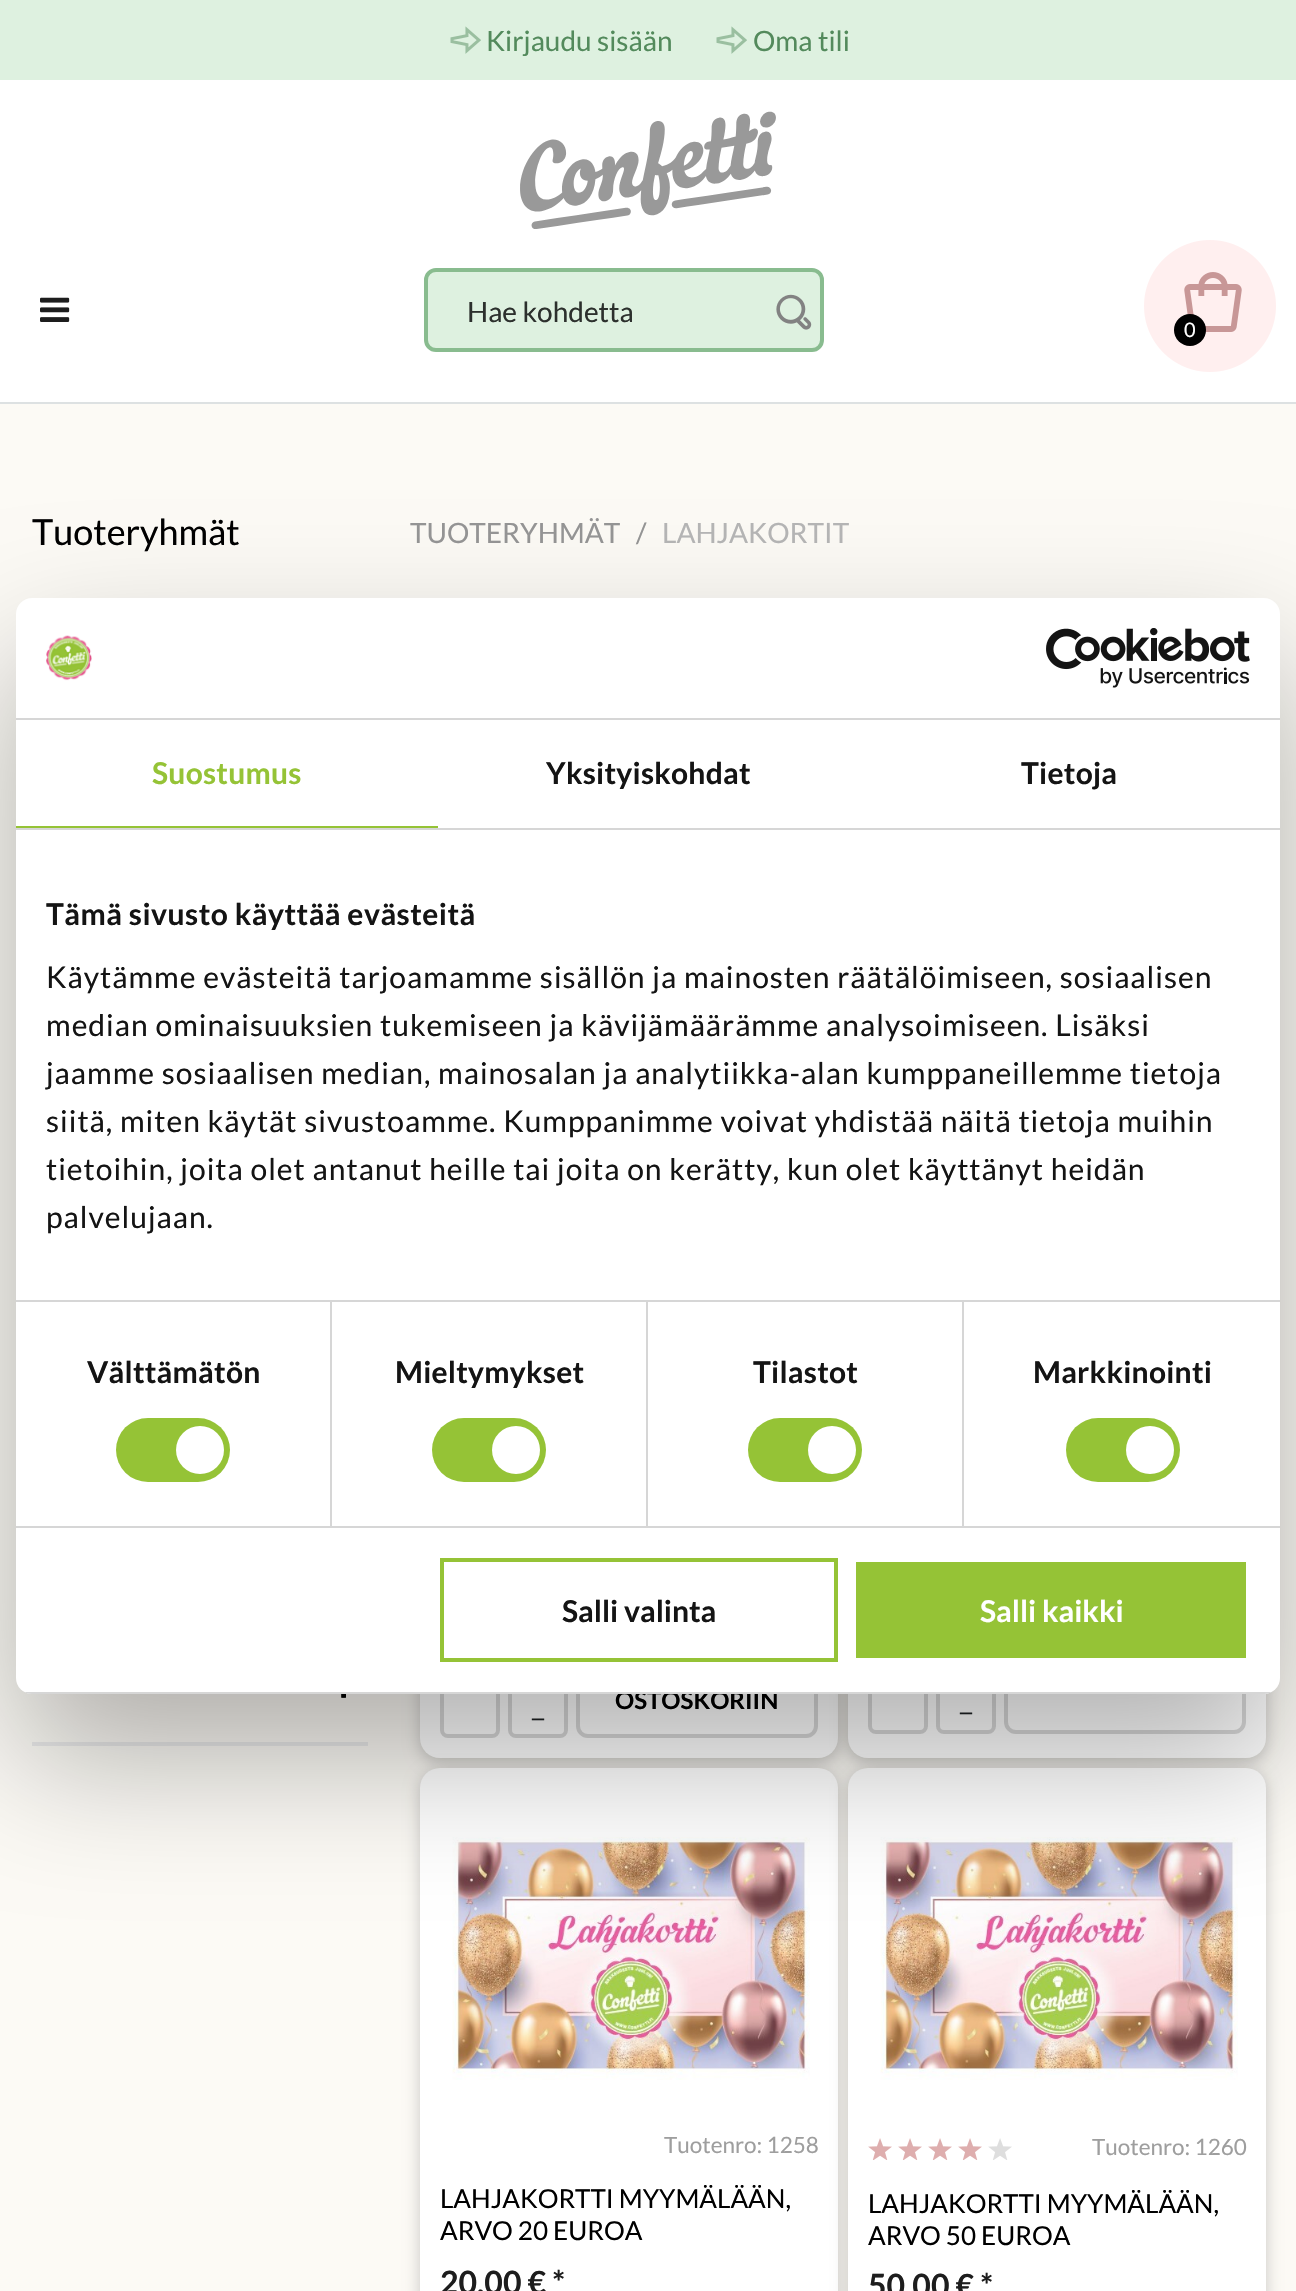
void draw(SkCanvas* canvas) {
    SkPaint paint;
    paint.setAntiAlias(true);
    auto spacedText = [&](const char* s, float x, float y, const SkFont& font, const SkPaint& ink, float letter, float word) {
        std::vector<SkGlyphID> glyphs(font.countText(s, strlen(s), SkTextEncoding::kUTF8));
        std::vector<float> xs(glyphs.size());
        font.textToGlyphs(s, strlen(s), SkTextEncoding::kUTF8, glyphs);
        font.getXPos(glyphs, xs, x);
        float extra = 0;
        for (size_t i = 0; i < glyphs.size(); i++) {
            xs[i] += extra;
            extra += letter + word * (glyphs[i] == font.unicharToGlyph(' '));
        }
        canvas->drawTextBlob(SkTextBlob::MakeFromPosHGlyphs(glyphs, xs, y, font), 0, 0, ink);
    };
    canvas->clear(0xFFFCFAF5);
    paint.setColor(0xFFDEF1E0);
    canvas->drawRect(SkRect::MakeXYWH(0, 0, 1296, 80), paint);
    canvas->drawImageRect(SkImages::DeferredFromEncodedData(SkData::MakeFromFileName("img1.png")), SkRect::MakeXYWH(450, 26, 31, 28), SkSamplingOptions());
    SkFont font1(fontMgr->matchFamilyStyle("Lato", SkFontStyle::Normal()), 28);
    font1.setSubpixel(true);
    paint.setColor(0xFF538A5C);
    canvas->drawString("Kirjaudu sisään", 486, 51, font1, paint);
    canvas->drawImageRect(SkImages::DeferredFromEncodedData(SkData::MakeFromFileName("img1.png")), SkRect::MakeXYWH(716, 26, 31, 28), SkSamplingOptions());
    canvas->drawString("Oma tili", 753, 51, font1, paint);
    paint.setColor(0xFFFFFFFF);
    canvas->drawRect(SkRect::MakeXYWH(0, 80, 1296, 322), paint);
    canvas->drawImageRect(SkImages::DeferredFromEncodedData(SkData::MakeFromFileName("img2.png")), SkRect::MakeXYWH(520, 111, 256, 118), SkSamplingOptions());
    canvas->drawImageRect(SkImages::DeferredFromEncodedData(SkData::MakeFromFileName("img3.png")), SkRect::MakeXYWH(40, 297, 30, 25), SkSamplingOptions());
    paint.setColor(0xFFDEF1E0);
    canvas->drawRoundRect(SkRect::MakeXYWH(426, 270, 396, 80), 10, 10, paint);
    paint.setStyle(SkPaint::kStroke_Style);
    paint.setStrokeWidth(4);
    paint.setColor(0xFF89BC8F);
    canvas->drawRoundRect(SkRect::MakeXYWH(426, 270, 396, 80), 10, 10, paint);
    paint.setStyle(SkPaint::kFill_Style);
    paint.setColor(0xFF2C302D);
    canvas->drawString("Hae kohdetta", 467, 322, font1, paint);
    canvas->drawImageRect(SkImages::DeferredFromEncodedData(SkData::MakeFromFileName("img4.png")), SkRect::MakeXYWH(776, 294, 36, 36), SkSamplingOptions());
    canvas->drawImageRect(SkImages::DeferredFromEncodedData(SkData::MakeFromFileName("img5.png")), SkRect::MakeXYWH(1144, 240, 132, 132), SkSamplingOptions());
    paint.setColor(0xFF000000);
    canvas->drawCircle(1190, 330, 16, paint);
    SkFont font2(fontMgr->matchFamilyStyle("Lato", SkFontStyle::Normal()), 20);
    font2.setSubpixel(true);
    paint.setColor(0xFFFFFFFF);
    canvas->drawString("0", 1184, 337, font2, paint);
    paint.setColor(0xFFDDE1E2);
    canvas->drawRect(SkRect::MakeXYWH(0, 402, 1296, 2), paint);
    SkFont font3(fontMgr->matchFamilyStyle("Lato", SkFontStyle::Normal()), 36);
    font3.setSubpixel(true);
    paint.setColor(0xFF000000);
    canvas->drawString("Tuoteryhmät", 32, 545, font3, paint);
    paint.setColor(0xFFEAEAEA);
    canvas->drawRect(SkRect::MakeXYWH(32, 1742, 336, 4), paint);
    canvas->drawImageRect(SkImages::DeferredFromEncodedData(SkData::MakeFromFileName("img6.png")), SkRect::MakeXYWH(341, 1694, 5, 4), SkSamplingOptions());
    paint.setColor(0xFF959595);
    canvas->drawString("TUOTERYHMÄT", 410, 543, font1, paint);
    canvas->drawString("/", 636, 543, font1, paint);
    paint.setColor(0xFFB5B5B5);
    canvas->drawString("LAHJAKORTIT", 662, 543, font1, paint);
    paint.setColor(0x33000000);
    paint.setMaskFilter(SkMaskFilter::MakeBlur(kNormal_SkBlurStyle, 8));
    canvas->drawRoundRect(SkRect::MakeXYWH(420, 970, 418, 792), 20, 20, paint);
    paint.setMaskFilter(nullptr);
    paint.setColor(0xFFFFFFFF);
    canvas->drawRoundRect(SkRect::MakeXYWH(420, 966, 418, 792), 20, 20, paint);
    paint.setStyle(SkPaint::kStroke_Style);
    paint.setColor(0xFFD9D9D9);
    canvas->drawRoundRect(SkRect::MakeXYWH(442, 1634, 56, 102), 6, 6, paint);
    canvas->drawRoundRect(SkRect::MakeXYWH(578, 1634, 238, 102), 10, 10, paint);
    SkFont font4(fontMgr->matchFamilyStyle("Lato", SkFontStyle::Bold()), 24);
    font4.setSubpixel(true);
    paint.setStyle(SkPaint::kFill_Style);
    paint.setColor(0xFF000000);
    canvas->drawString("OSTOSKORIIN", 615, 1709, font4, paint);
    paint.setStyle(SkPaint::kStroke_Style);
    paint.setColor(0xFFD9D9D9);
    canvas->drawRoundRect(SkRect::MakeXYWH(510, 1634, 56, 102), 6, 6, paint);
    SkFont font5(fontMgr->matchFamilyStyle("Liberation Serif", SkFontStyle::Bold()), 24);
    font5.setSubpixel(true);
    paint.setStyle(SkPaint::kFill_Style);
    paint.setColor(0xFF1D2123);
    canvas->drawString("–", 532, 1725, font5, paint);
    paint.setColor(0x33000000);
    paint.setMaskFilter(SkMaskFilter::MakeBlur(kNormal_SkBlurStyle, 8));
    canvas->drawRoundRect(SkRect::MakeXYWH(848, 970, 418, 792), 20, 20, paint);
    paint.setMaskFilter(nullptr);
    paint.setColor(0xFFFFFFFF);
    canvas->drawRoundRect(SkRect::MakeXYWH(848, 966, 418, 792), 20, 20, paint);
    paint.setStyle(SkPaint::kStroke_Style);
    paint.setColor(0xFFD9D9D9);
    canvas->drawRoundRect(SkRect::MakeXYWH(870, 1628, 56, 104), 6, 6, paint);
    canvas->drawRoundRect(SkRect::MakeXYWH(938, 1628, 56, 104), 6, 6, paint);
    paint.setStyle(SkPaint::kFill_Style);
    paint.setColor(0xFF1D2123);
    canvas->drawString("–", 960, 1719, font5, paint);
    paint.setStyle(SkPaint::kStroke_Style);
    paint.setColor(0xFFD9D9D9);
    canvas->drawRoundRect(SkRect::MakeXYWH(1006, 1628, 238, 104), 10, 10, paint);
    paint.setStyle(SkPaint::kFill_Style);
    paint.setColor(0x33000000);
    paint.setMaskFilter(SkMaskFilter::MakeBlur(kNormal_SkBlurStyle, 8));
    canvas->drawRoundRect(SkRect::MakeXYWH(420, 1772, 418, 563), 20, 20, paint);
    paint.setMaskFilter(nullptr);
    paint.setColor(0xFFFFFFFF);
    canvas->drawRoundRect(SkRect::MakeXYWH(420, 1768, 418, 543), 20, 20, paint);
    canvas->drawImageRect(SkImages::DeferredFromEncodedData(SkData::MakeFromFileName("img7.png")), SkRect::MakeXYWH(452, 1837, 358, 243), SkSamplingOptions());
    SkFont font6(fontMgr->matchFamilyStyle("Lato", SkFontStyle::Normal()), 22.5f);
    font6.setSubpixel(true);
    paint.setColor(0xFF9E9E9E);
    canvas->drawString("Tuotenro: 1258", 664, 2153, font6, paint);
    SkFont font7(fontMgr->matchFamilyStyle("Lato", SkFontStyle::Normal()), 26);
    font7.setSubpixel(true);
    paint.setColor(0xFF000000);
    canvas->drawString("LAHJAKORTTI MYYMÄLÄÄN,", 440, 2208, font7, paint);
    canvas->drawString("ARVO 20 EUROA", 440, 2240, font7, paint);
    SkFont font8(fontMgr->matchFamilyStyle("Lato", SkFontStyle::Bold()), 32);
    font8.setSubpixel(true);
    paint.setColor(0xFF1D1D1D);
    canvas->drawString("20,00 € *", 440, 2294, font8, paint);
    paint.setColor(0x33000000);
    paint.setMaskFilter(SkMaskFilter::MakeBlur(kNormal_SkBlurStyle, 8));
    canvas->drawRoundRect(SkRect::MakeXYWH(848, 1772, 418, 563), 20, 20, paint);
    paint.setMaskFilter(nullptr);
    paint.setColor(0xFFFFFFFF);
    canvas->drawRoundRect(SkRect::MakeXYWH(848, 1768, 418, 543), 20, 20, paint);
    canvas->drawImageRect(SkImages::DeferredFromEncodedData(SkData::MakeFromFileName("img8.png")), SkRect::MakeXYWH(880, 1837, 358, 243), SkSamplingOptions());
    canvas->drawImageRect(SkImages::DeferredFromEncodedData(SkData::MakeFromFileName("img9.png")), SkRect::MakeXYWH(868, 2138, 24, 22), SkSamplingOptions());
    canvas->drawImageRect(SkImages::DeferredFromEncodedData(SkData::MakeFromFileName("img9.png")), SkRect::MakeXYWH(898, 2138, 24, 22), SkSamplingOptions());
    canvas->drawImageRect(SkImages::DeferredFromEncodedData(SkData::MakeFromFileName("img9.png")), SkRect::MakeXYWH(928, 2138, 24, 22), SkSamplingOptions());
    canvas->drawImageRect(SkImages::DeferredFromEncodedData(SkData::MakeFromFileName("img9.png")), SkRect::MakeXYWH(958, 2138, 24, 22), SkSamplingOptions());
    canvas->drawImageRect(SkImages::DeferredFromEncodedData(SkData::MakeFromFileName("img10.png")), SkRect::MakeXYWH(988, 2138, 24, 22), SkSamplingOptions());
    paint.setColor(0xFF9E9E9E);
    canvas->drawString("Tuotenro: 1260", 1092, 2155, font6, paint);
    paint.setColor(0xFF000000);
    canvas->drawString("LAHJAKORTTI MYYMÄLÄÄN,", 868, 2213, font7, paint);
    canvas->drawString("ARVO 50 EUROA", 868, 2245, font7, paint);
    paint.setColor(0xFF1D1D1D);
    canvas->drawString("50,00 € *", 868, 2297, font8, paint);
    paint.setColor(0x4D000000);
    paint.setMaskFilter(SkMaskFilter::MakeBlur(kNormal_SkBlurStyle, 68));
    canvas->drawRoundRect(SkRect::MakeXYWH(16, 662, 1264, 1096), 16, 16, paint);
    paint.setMaskFilter(nullptr);
    paint.setColor(0xFFFFFFFF);
    canvas->drawRoundRect(SkRect::MakeXYWH(16, 598, 1264, 1096), 16, 16, paint);
    paint.setColor(0xFFD6D6D6);
    canvas->drawRect(SkRect::MakeXYWH(16, 718, 1264, 2), paint);
    canvas->drawImageRect(SkImages::DeferredFromEncodedData(SkData::MakeFromFileName("img11.png")), SkRect::MakeXYWH(46, 635, 46, 46), SkSamplingOptions());
    canvas->drawImageRect(SkImages::DeferredFromEncodedData(SkData::MakeFromFileName("img12.png")), SkRect::MakeXYWH(1046, 628, 204, 60), SkSamplingOptions());
    canvas->drawRect(SkRect::MakeXYWH(16, 828, 1264, 2), paint);
    paint.setColor(0xFF95C336);
    canvas->drawRect(SkRect::MakeXYWH(16, 826, 422, 2), paint);
    SkFont font9(fontMgr->matchFamilyStyle("Lato", SkFontStyle::Bold()), 30);
    font9.setSubpixel(true);
    spacedText("Suostumus", 152, 784, font9, paint, 0.25f, 0);
    paint.setColor(0xFF141414);
    spacedText("Yksityiskohdat", 546, 784, font9, paint, 0.25f, 0);
    spacedText("Tietoja", 1021, 784, font9, paint, 0.25f, 0);
    paint.setColor(0xFFD6D6D6);
    canvas->drawRect(SkRect::MakeXYWH(16, 1300, 1264, 2), paint);
    paint.setColor(0xFF141414);
    spacedText("Tämä sivusto käyttää evästeitä", 46, 925, font9, paint, 0.5f, 0);
    SkFont font10(fontMgr->matchFamilyStyle("Lato", SkFontStyle::Normal()), 30);
    font10.setSubpixel(true);
    spacedText("Käytämme evästeitä tarjoamamme sisällön ja mainosten räätälöimiseen, sosiaalisen", 46, 988, font10, paint, 1, 0);
    spacedText("median ominaisuuksien tukemiseen ja kävijämäärämme analysoimiseen. Lisäksi", 46, 1036, font10, paint, 1, 0);
    spacedText("jaamme sosiaalisen median, mainosalan ja analytiikka-alan kumppaneillemme tietoja", 46, 1084, font10, paint, 1, 0);
    spacedText("siitä, miten käytät sivustoamme. Kumppanimme voivat yhdistää näitä tietoja muihin", 46, 1132, font10, paint, 1, 0);
    spacedText("tietoihin, joita olet antanut heille tai joita on kerätty, kun olet käyttänyt heidän", 46, 1180, font10, paint, 1, 0);
    spacedText("palvelujaan.", 46, 1228, font10, paint, 1, 0);
    paint.setColor(0xFFD6D6D6);
    canvas->drawRect(SkRect::MakeXYWH(16, 1526, 1264, 2), paint);
    canvas->drawRect(SkRect::MakeXYWH(330, 1302, 2, 224), paint);
    paint.setColor(0xFF141414);
    spacedText("Välttämätön", 87, 1383, font9, paint, 0.25f, 0);
    paint.setColor(0xFF95C336);
    canvas->drawRoundRect(SkRect::MakeXYWH(116, 1418, 114, 64), 32, 32, paint);
    paint.setColor(0xFFFFFFFF);
    canvas->drawCircle(200, 1450, 24, paint);
    paint.setColor(0xFFD6D6D6);
    canvas->drawRect(SkRect::MakeXYWH(646, 1302, 2, 224), paint);
    paint.setColor(0xFF141414);
    spacedText("Mieltymykset", 395, 1383, font9, paint, 0.25f, 0);
    paint.setColor(0xFF95C336);
    canvas->drawRoundRect(SkRect::MakeXYWH(432, 1418, 114, 64), 32, 32, paint);
    paint.setColor(0xFFFFFFFF);
    canvas->drawCircle(516, 1450, 24, paint);
    paint.setColor(0xFFD6D6D6);
    canvas->drawRect(SkRect::MakeXYWH(962, 1302, 2, 224), paint);
    paint.setColor(0xFF141414);
    spacedText("Tilastot", 753, 1383, font9, paint, 0.25f, 0);
    paint.setColor(0xFF95C336);
    canvas->drawRoundRect(SkRect::MakeXYWH(748, 1418, 114, 64), 32, 32, paint);
    paint.setColor(0xFFFFFFFF);
    canvas->drawCircle(832, 1450, 24, paint);
    paint.setColor(0xFF141414);
    spacedText("Markkinointi", 1033, 1383, font9, paint, 0.25f, 0);
    paint.setColor(0xFF95C336);
    canvas->drawRoundRect(SkRect::MakeXYWH(1066, 1418, 114, 64), 32, 32, paint);
    paint.setColor(0xFFFFFFFF);
    canvas->drawCircle(1150, 1450, 24, paint);
    canvas->save();
    canvas->clipPath(SkPathBuilder().moveTo(32, 598).lineTo(1264, 598).cubicTo(1273, 598, 1280, 605, 1280, 614).lineTo(1280, 1678).cubicTo(1280, 1687, 1273, 1694, 1264, 1694).lineTo(32, 1694).cubicTo(23, 1694, 16, 1687, 16, 1678).lineTo(16, 614).cubicTo(16, 605, 23, 598, 32, 598).close().detach(), true);
    paint.setColor(0xFFD6D6D6);
    canvas->drawRect(SkRect::MakeXYWH(16, 1692, 1264, 2), paint);
    canvas->restore();
    paint.setStyle(SkPaint::kStroke_Style);
    paint.setColor(0xFF95C336);
    canvas->drawRect(SkRect::MakeXYWH(442, 1560, 394, 100), paint);
    paint.setStyle(SkPaint::kFill_Style);
    paint.setColor(0xFF141414);
    canvas->drawString("Salli valinta", 562, 1622, font9, paint);
    paint.setColor(0xFF95C336);
    canvas->drawRect(SkRect::MakeXYWH(856, 1562, 390, 96), paint);
    paint.setColor(0xFFFFFFFF);
    canvas->drawString("Salli kaikki", 980, 1622, font9, paint);
}
